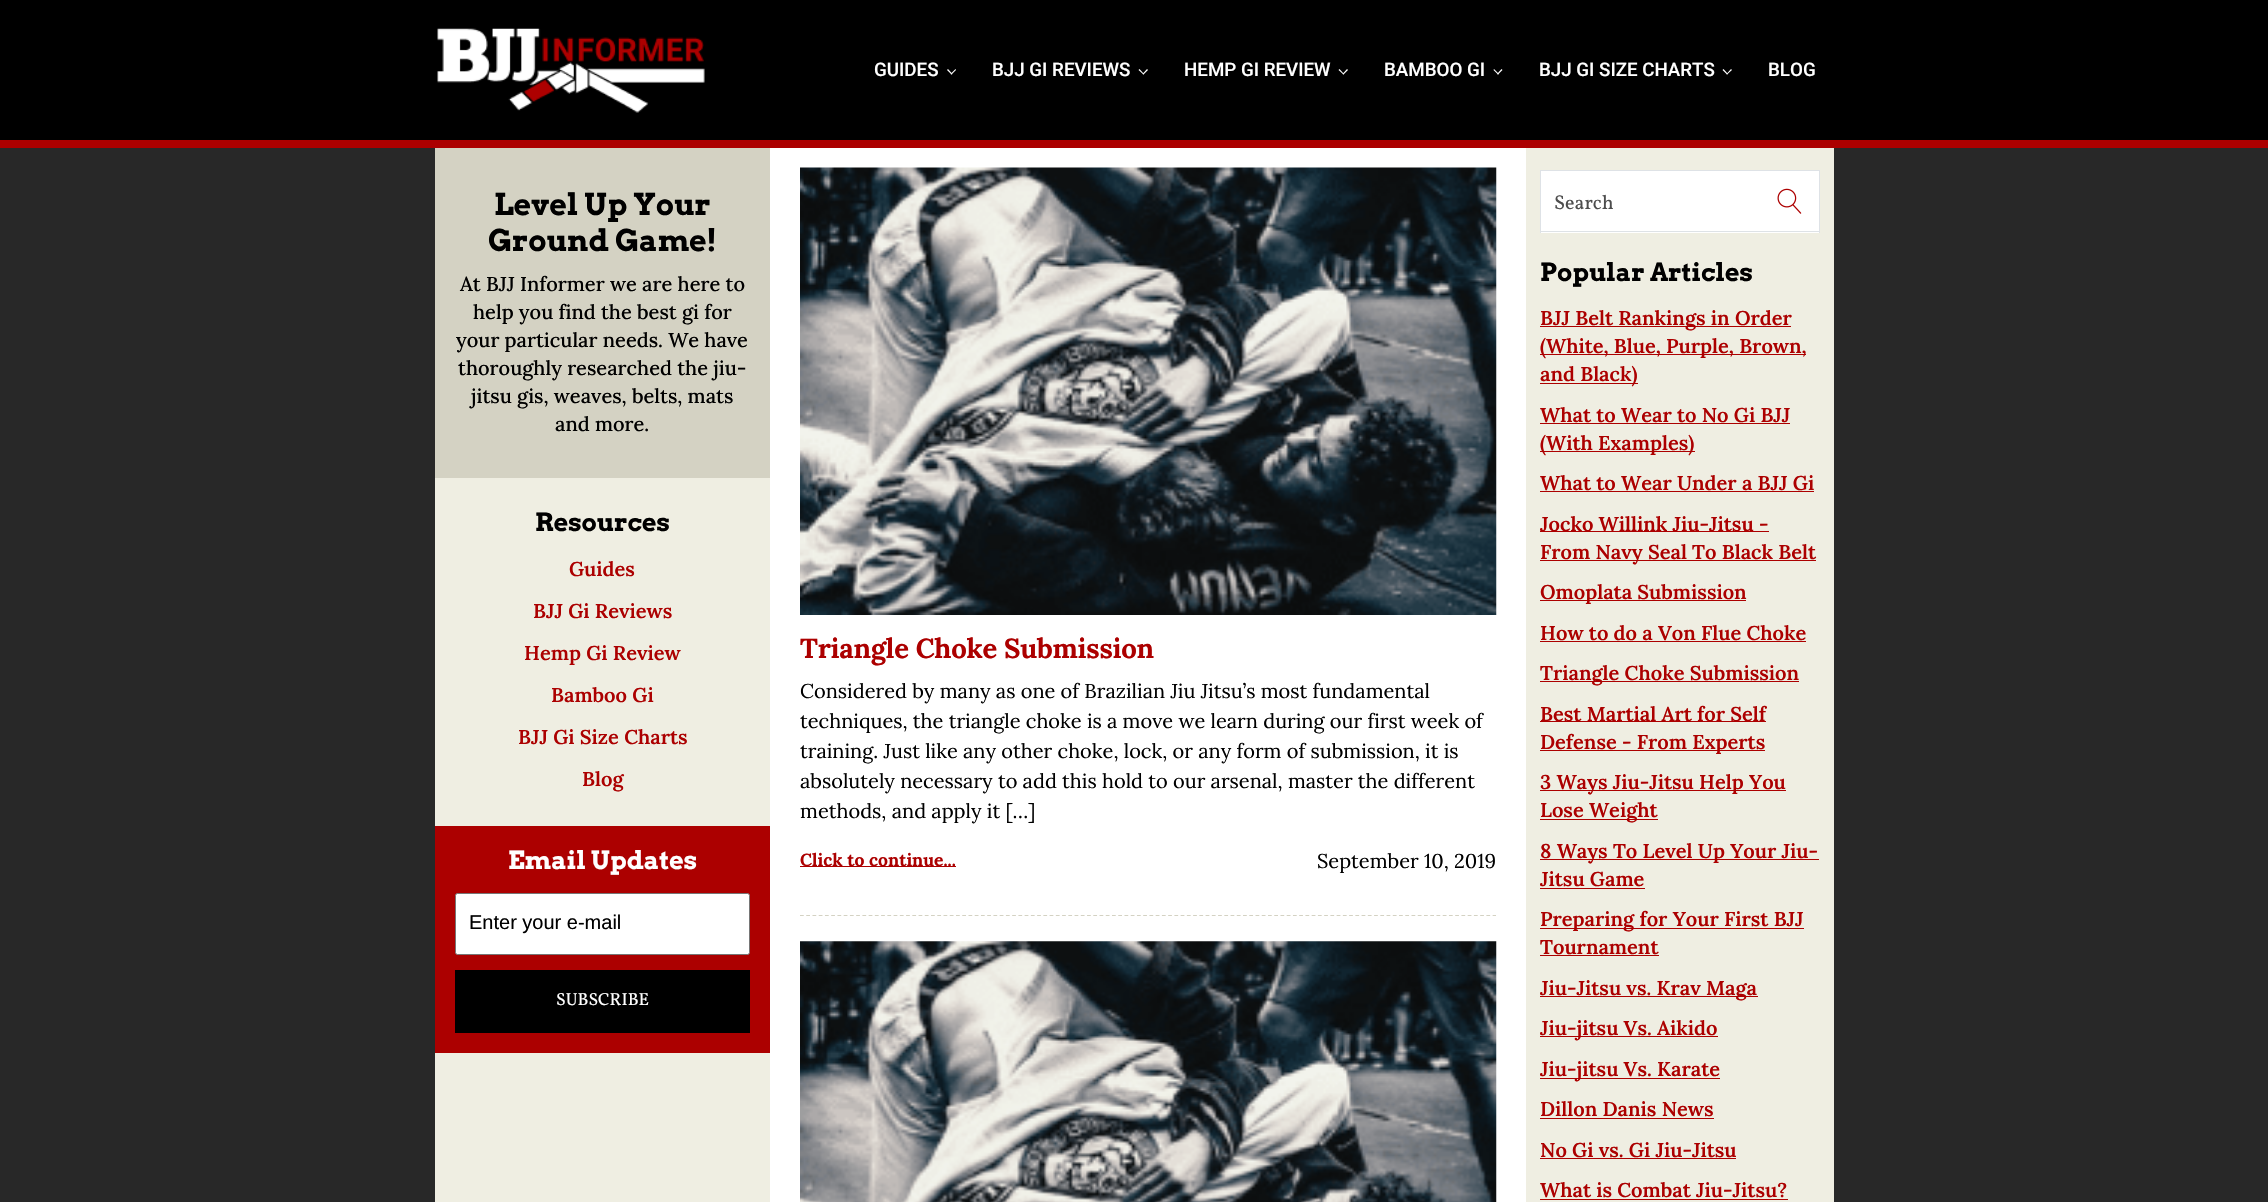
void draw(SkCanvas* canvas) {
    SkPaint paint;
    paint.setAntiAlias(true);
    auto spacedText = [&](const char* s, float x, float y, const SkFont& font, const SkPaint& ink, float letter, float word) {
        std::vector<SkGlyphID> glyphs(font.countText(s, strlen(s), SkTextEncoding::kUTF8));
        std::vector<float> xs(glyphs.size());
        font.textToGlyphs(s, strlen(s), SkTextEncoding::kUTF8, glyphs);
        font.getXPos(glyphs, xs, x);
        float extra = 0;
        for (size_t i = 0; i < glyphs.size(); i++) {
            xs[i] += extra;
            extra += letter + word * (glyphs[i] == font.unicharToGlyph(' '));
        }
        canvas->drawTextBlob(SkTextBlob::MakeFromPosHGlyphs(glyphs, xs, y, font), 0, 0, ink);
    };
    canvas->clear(0xFF000000);
    paint.setColor(0xFFAC0000);
    canvas->drawRect(SkRect::MakeXYWH(0, 140, 2268, 8), paint);
    canvas->drawImageRect(SkImages::DeferredFromEncodedData(SkData::MakeFromFileName("img1.png")), SkRect::MakeXYWH(437, 28, 268, 85), SkSamplingOptions());
    SkFont font1(fontMgr->matchFamilyStyle("Roboto", SkFontStyle(500, SkFontStyle::kNormal_Width, SkFontStyle::kUpright_Slant)), 18.75f);
    font1.setSubpixel(true);
    paint.setColor(0xFFFFFFFF);
    canvas->drawString("GUIDES", 874, 76, font1, paint);
    canvas->drawPath(SkPathBuilder().moveTo(956, 70).lineTo(951.5f, 74.5f).lineTo(950.5f, 74).lineTo(955.5f, 69).close().detach(), paint);
    canvas->drawPath(SkPathBuilder().moveTo(952.5f, 74).lineTo(951.5f, 74.5f).lineTo(947, 70).lineTo(948, 69).close().detach(), paint);
    canvas->drawString("BJJ GI REVIEWS", 992, 76, font1, paint);
    canvas->drawPath(SkPathBuilder().moveTo(1148, 70).lineTo(1143.5f, 74.5f).lineTo(1142.5f, 74).lineTo(1147, 69).close().detach(), paint);
    canvas->drawPath(SkPathBuilder().moveTo(1144, 74).lineTo(1143.5f, 74.5f).lineTo(1138.5f, 70).lineTo(1139.5f, 69).close().detach(), paint);
    canvas->drawString("HEMP GI REVIEW", 1184, 76, font1, paint);
    canvas->drawPath(SkPathBuilder().moveTo(1348, 70).lineTo(1343.5f, 74.5f).lineTo(1342.5f, 74).lineTo(1347, 69).close().detach(), paint);
    canvas->drawPath(SkPathBuilder().moveTo(1344, 74).lineTo(1343.5f, 74.5f).lineTo(1338.5f, 70).lineTo(1339.5f, 69).close().detach(), paint);
    canvas->drawString("BAMBOO GI", 1384, 76, font1, paint);
    canvas->drawPath(SkPathBuilder().moveTo(1502.5f, 70).lineTo(1498, 74.5f).lineTo(1497, 74).lineTo(1501.5f, 69).close().detach(), paint);
    canvas->drawPath(SkPathBuilder().moveTo(1499, 74).lineTo(1498, 74.5f).lineTo(1493.5f, 70).lineTo(1494, 69).close().detach(), paint);
    canvas->drawString("BJJ GI SIZE CHARTS", 1539, 76, font1, paint);
    canvas->drawPath(SkPathBuilder().moveTo(1732, 70).lineTo(1727, 74.5f).lineTo(1726.5f, 74).lineTo(1731, 69).close().detach(), paint);
    canvas->drawPath(SkPathBuilder().moveTo(1728, 74).lineTo(1727, 74.5f).lineTo(1722.5f, 70).lineTo(1723.5f, 69).close().detach(), paint);
    canvas->drawString("BLOG", 1768, 76, font1, paint);
    paint.setColor(0xFF282828);
    canvas->drawRect(SkRect::MakeXYWH(0, 148, 2268, 1054), paint);
    paint.setColor(0xFFEFEEE2);
    canvas->drawRect(SkRect::MakeXYWH(435, 478, 335, 724), paint);
    paint.setColor(0xFFD4D2C3);
    canvas->drawRect(SkRect::MakeXYWH(435, 148, 335, 330), paint);
    SkFont font2(fontMgr->matchFamilyStyle("Arvo", SkFontStyle::Bold()), 30);
    font2.setSubpixel(true);
    paint.setColor(0xFF000000);
    canvas->drawString("Level Up Your", 494, 215, font2, paint);
    canvas->drawString("Ground Game!", 488, 251, font2, paint);
    SkFont font3(fontMgr->matchFamilyStyle("Lora", SkFontStyle(500, SkFontStyle::kNormal_Width, SkFontStyle::kUpright_Slant)), 20);
    font3.setSubpixel(true);
    canvas->drawString("At BJJ Informer we are here to", 460, 291, font3, paint);
    canvas->drawString("help you find the best gi for", 473, 319, font3, paint);
    canvas->drawString("your particular needs. We have", 456, 347, font3, paint);
    canvas->drawString("thoroughly researched the jiu-", 458, 375, font3, paint);
    canvas->drawString("jitsu gis, weaves, belts, mats", 471, 403, font3, paint);
    canvas->drawString("and more.", 555, 431, font3, paint);
    SkFont font4(fontMgr->matchFamilyStyle("Arvo", SkFontStyle::Bold()), 25);
    font4.setSubpixel(true);
    canvas->drawString("Resources", 535, 531, font4, paint);
    SkFont font5(fontMgr->matchFamilyStyle("Lora", SkFontStyle(600, SkFontStyle::kNormal_Width, SkFontStyle::kUpright_Slant)), 20);
    font5.setSubpixel(true);
    paint.setColor(0xFFAC0000);
    canvas->drawString("Guides", 569, 576, font5, paint);
    canvas->drawString("BJJ Gi Reviews", 533, 618, font5, paint);
    canvas->drawString("Hemp Gi Review", 524, 660, font5, paint);
    canvas->drawString("Bamboo Gi", 551, 702, font5, paint);
    canvas->drawString("BJJ Gi Size Charts", 518, 744, font5, paint);
    canvas->drawString("Blog", 582, 786, font5, paint);
    canvas->drawRect(SkRect::MakeXYWH(435, 826, 335, 227), paint);
    paint.setColor(0xFFFFFFFF);
    canvas->drawString("Email Updates", 508, 869, font4, paint);
    canvas->drawRoundRect(SkRect::MakeXYWH(455.5f, 893.5f, 294, 61), 2, 2, paint);
    paint.setStyle(SkPaint::kStroke_Style);
    paint.setStrokeWidth(1);
    paint.setColor(0xFF767676);
    canvas->drawRoundRect(SkRect::MakeXYWH(455.5f, 893.5f, 294, 61), 2, 2, paint);
    SkFont font6(fontMgr->matchFamilyStyle("Liberation Sans", SkFontStyle::Normal()), 20);
    font6.setSubpixel(true);
    paint.setStyle(SkPaint::kFill_Style);
    paint.setColor(0xFF000000);
    canvas->drawString("Enter your e-mail", 469, 929, font6, paint);
    canvas->drawRect(SkRect::MakeXYWH(455, 970, 295, 63), paint);
    SkFont font7(fontMgr->matchFamilyStyle("Vollkorn", SkFontStyle::Normal()), 17.5f);
    font7.setSubpixel(true);
    paint.setColor(0xFFFFFFFF);
    canvas->drawString("SUBSCRIBE", 556, 1005, font7, paint);
    canvas->drawRect(SkRect::MakeXYWH(770, 148, 756, 1054), paint);
    paint.setStyle(SkPaint::kStroke_Style);
    paint.setStrokeWidth(1.2f);
    paint.setColor(0xFFD4D2C3);
    paint.setPathEffect(SkDashPathEffect::Make({{3.75f, 2.49f}}, 0));
    canvas->drawPath(SkPathBuilder().moveTo(800, 915.5f).lineTo(1496, 915.5f).detach(), paint);
    paint.setPathEffect(nullptr);
    canvas->drawImageRect(SkImages::DeferredFromEncodedData(SkData::MakeFromFileName("img2.png")), SkRect::MakeXYWH(800, 167, 697, 448), SkSamplingOptions());
    SkFont font8(fontMgr->matchFamilyStyle("Lora", SkFontStyle::Bold()), 27.5f);
    font8.setSubpixel(true);
    paint.setStyle(SkPaint::kFill_Style);
    paint.setColor(0xFFAC0000);
    spacedText("Triangle Choke Submission", 800, 658, font8, paint, -0.25f, 0);
    SkFont font9(fontMgr->matchFamilyStyle("Lora", SkFontStyle::Normal()), 20);
    font9.setSubpixel(true);
    paint.setColor(0xFF000000);
    canvas->drawString("Considered by many as one of Brazilian Jiu Jitsu’s most fundamental", 800, 698, font9, paint);
    canvas->drawString("techniques, the triangle choke is a move we learn during our first week of", 800, 728, font9, paint);
    canvas->drawString("training. Just like any other choke, lock, or any form of submission, it is", 800, 758, font9, paint);
    canvas->drawString("absolutely necessary to add this hold to our arsenal, master the different", 800, 788, font9, paint);
    canvas->drawString("methods, and apply it […]", 800, 818, font9, paint);
    paint.setColor(0xFFAC0000);
    canvas->drawRect(SkRect::MakeXYWH(800, 866, 156, 1), paint);
    SkFont font10(fontMgr->matchFamilyStyle("Lora", SkFontStyle::Bold()), 17.5f);
    font10.setSubpixel(true);
    canvas->drawString("Click to continue...", 800, 866, font10, paint);
    paint.setColor(0xFF000000);
    canvas->drawString("September 10, 2019", 1317, 868, font9, paint);
    canvas->drawImageRect(SkImages::DeferredFromEncodedData(SkData::MakeFromFileName("img3.png")), SkRect::MakeXYWH(800, 941, 697, 261), SkSamplingOptions());
    paint.setColor(0xFFEFEEE2);
    canvas->drawRect(SkRect::MakeXYWH(1526, 148, 308, 1054), paint);
    paint.setColor(0xFFFFFFFF);
    canvas->drawRect(SkRect::MakeXYWH(1541, 171, 278, 62), paint);
    paint.setColor(0xFFDEE2E6);
    canvas->drawRect(SkRect::MakeXYWH(1540, 170, 280, 1), paint);
    canvas->drawRect(SkRect::MakeXYWH(1540, 231, 220, 1), paint);
    canvas->drawRect(SkRect::MakeXYWH(1540, 170, 1, 63), paint);
    SkFont font11(fontMgr->matchFamilyStyle("Vollkorn", SkFontStyle::Normal()), 20);
    font11.setSubpixel(true);
    paint.setColor(0xFF4D4D4D);
    canvas->drawString("Search", 1554, 209, font11, paint);
    paint.setColor(0xFFDEE2E6);
    canvas->drawRect(SkRect::MakeXYWH(1819, 170, 1, 63), paint);
    canvas->drawRect(SkRect::MakeXYWH(1760, 231, 60, 1), paint);
    canvas->drawImageRect(SkImages::DeferredFromEncodedData(SkData::MakeFromFileName("img4.png")), SkRect::MakeXYWH(1777, 188, 25, 26), SkSamplingOptions());
    paint.setColor(0xFF000000);
    canvas->drawString("Popular Articles", 1540, 281, font4, paint);
    paint.setColor(0xFFAC0000);
    canvas->drawRect(SkRect::MakeXYWH(1540, 326, 251, 1), paint);
    canvas->drawString("BJJ Belt Rankings in Order", 1540, 325, font5, paint);
    canvas->drawRect(SkRect::MakeXYWH(1540, 354, 266, 1), paint);
    canvas->drawString("(White, Blue, Purple, Brown,", 1540, 353, font5, paint);
    canvas->drawRect(SkRect::MakeXYWH(1540, 383, 98, 1), paint);
    canvas->drawString("and Black)", 1540, 381, font5, paint);
    canvas->drawString("What to Wear to No Gi BJJ", 1540, 422, font5, paint);
    canvas->drawRect(SkRect::MakeXYWH(1540, 423, 250, 1), paint);
    canvas->drawRect(SkRect::MakeXYWH(1540, 451, 155, 1), paint);
    canvas->drawString("(With Examples)", 1540, 450, font5, paint);
    canvas->drawString("What to Wear Under a BJJ Gi", 1540, 490, font5, paint);
    canvas->drawRect(SkRect::MakeXYWH(1540, 491, 274, 1), paint);
    canvas->drawRect(SkRect::MakeXYWH(1540, 531, 229, 1), paint);
    canvas->drawString("Jocko Willink Jiu-Jitsu -", 1540, 531, font5, paint);
    canvas->drawRect(SkRect::MakeXYWH(1540, 560, 276, 1), paint);
    canvas->drawString("From Navy Seal To Black Belt", 1540, 559, font5, paint);
    canvas->drawRect(SkRect::MakeXYWH(1540, 600, 206, 1), paint);
    canvas->drawString("Omoplata Submission", 1540, 599, font5, paint);
    canvas->drawString("How to do a Von Flue Choke", 1540, 640, font5, paint);
    canvas->drawRect(SkRect::MakeXYWH(1540, 641, 266, 1), paint);
    canvas->drawRect(SkRect::MakeXYWH(1540, 681, 259, 1), paint);
    canvas->drawString("Triangle Choke Submission", 1540, 680, font5, paint);
    canvas->drawRect(SkRect::MakeXYWH(1540, 721, 226, 1), paint);
    canvas->drawString("Best Martial Art for Self", 1540, 721, font5, paint);
    canvas->drawRect(SkRect::MakeXYWH(1540, 750, 225, 1), paint);
    canvas->drawString("Defense - From Experts", 1540, 749, font5, paint);
    canvas->drawRect(SkRect::MakeXYWH(1540, 790, 246, 1), paint);
    canvas->drawString("3 Ways Jiu-Jitsu Help You", 1540, 789, font5, paint);
    canvas->drawRect(SkRect::MakeXYWH(1540, 819, 118, 1), paint);
    canvas->drawString("Lose Weight", 1540, 817, font5, paint);
    canvas->drawRect(SkRect::MakeXYWH(1540, 859, 279, 1), paint);
    canvas->drawString("8 Ways To Level Up Your Jiu-", 1540, 858, font5, paint);
    canvas->drawString("Jitsu Game", 1540, 886, font5, paint);
    canvas->drawRect(SkRect::MakeXYWH(1540, 888, 105, 1), paint);
    canvas->drawRect(SkRect::MakeXYWH(1540, 928, 264, 1), paint);
    canvas->drawString("Preparing for Your First BJJ", 1540, 926, font5, paint);
    canvas->drawString("Tournament", 1540, 954, font5, paint);
    canvas->drawRect(SkRect::MakeXYWH(1540, 955, 119, 1), paint);
    canvas->drawRect(SkRect::MakeXYWH(1540, 996, 218, 1), paint);
    canvas->drawString("Jiu-Jitsu vs. Krav Maga", 1540, 995, font5, paint);
    canvas->drawRect(SkRect::MakeXYWH(1540, 1036, 178, 1), paint);
    canvas->drawString("Jiu-jitsu Vs. Aikido", 1540, 1035, font5, paint);
    canvas->drawRect(SkRect::MakeXYWH(1540, 1078, 180, 1), paint);
    canvas->drawString("Jiu-jitsu Vs. Karate", 1540, 1076, font5, paint);
    canvas->drawString("Dillon Danis News", 1540, 1116, font5, paint);
    canvas->drawRect(SkRect::MakeXYWH(1540, 1118, 174, 1), paint);
    canvas->drawString("No Gi vs. Gi Jiu-Jitsu", 1540, 1157, font5, paint);
    canvas->drawRect(SkRect::MakeXYWH(1540, 1158, 196, 1), paint);
    canvas->drawString("What is Combat Jiu-Jitsu?", 1540, 1197, font5, paint);
    canvas->drawRect(SkRect::MakeXYWH(1540, 1199, 248, 1), paint);
}
